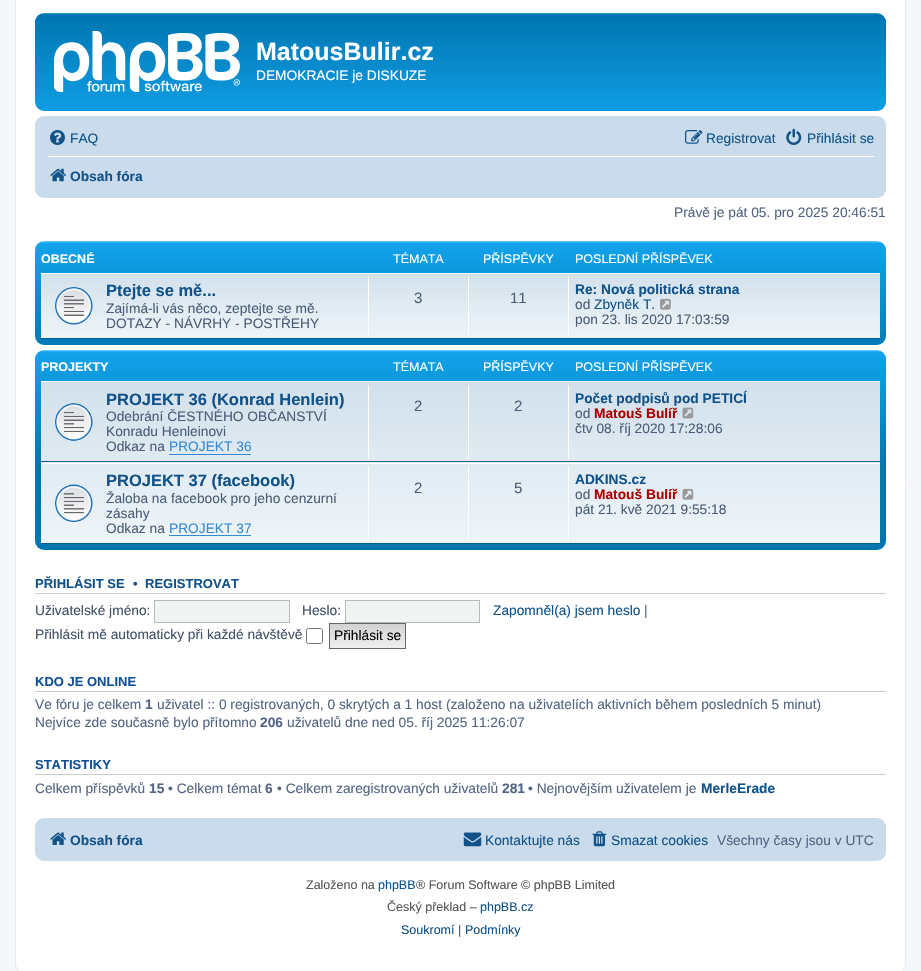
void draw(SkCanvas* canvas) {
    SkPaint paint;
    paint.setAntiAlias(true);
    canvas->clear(0xFFF5F7FA);
    paint.setColor(0xFFFFFFFF);
    canvas->drawRoundRect(SkRect::MakeXYWH(15.5f, -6.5f, 890, 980), 9.5f, 9.5f, paint);
    paint.setStyle(SkPaint::kStroke_Style);
    paint.setStrokeWidth(1);
    paint.setColor(0xFFE6E9ED);
    canvas->drawRoundRect(SkRect::MakeXYWH(15.5f, -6.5f, 890, 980), 9.5f, 9.5f, paint);
    paint.setStyle(SkPaint::kFill_Style);
    {
        const SkColor colors[] = {0xFF6ACEFF, 0xFF0076B1, 0xFF12A3EB};
        const float stops[] = {0, 0.02f, 1};
        const SkPoint ends[] = {{461, 12}, {461, 127}};
        paint.setShader(SkGradientShader::MakeLinear(ends, colors, stops, 3, SkTileMode::kClamp));
        paint.setAlpha(255);
    }
    canvas->drawRoundRect(SkRect::MakeXYWH(35, 13, 851, 98), 9, 9, paint);
    canvas->drawImageRect(SkImages::DeferredFromEncodedData(SkData::MakeFromFileName("img1.png")), SkRect::MakeXYWH(54, 31, 186, 61), SkSamplingOptions());
    SkFont font1(fontMgr->matchFamilyStyle("Liberation Sans", SkFontStyle::Bold()), 25);
    font1.setSubpixel(true);
    paint.setShader(nullptr);
    paint.setColor(0xFFFFFFFF);
    canvas->drawString("MatousBulir.cz", 256, 60, font1, paint);
    SkFont font2(fontMgr->matchFamilyStyle("Liberation Sans", SkFontStyle::Normal()), 13.75f);
    font2.setSubpixel(true);
    canvas->drawString("DEMOKRACIE je DISKUZE", 256, 80, font2, paint);
    paint.setColor(0xFFCADCEB);
    canvas->drawRoundRect(SkRect::MakeXYWH(35, 116, 851, 82), 9, 9, paint);
    canvas->drawImageRect(SkImages::DeferredFromEncodedData(SkData::MakeFromFileName("img2.png")), SkRect::MakeXYWH(50, 130, 15, 15), SkSamplingOptions());
    paint.setColor(0xFF105289);
    canvas->drawString("FAQ", 70, 143, font2, paint);
    canvas->drawImageRect(SkImages::DeferredFromEncodedData(SkData::MakeFromFileName("img3.png")), SkRect::MakeXYWH(685, 130, 18, 14), SkSamplingOptions());
    canvas->drawString("Registrovat", 706, 143, font2, paint);
    canvas->drawImageRect(SkImages::DeferredFromEncodedData(SkData::MakeFromFileName("img4.png")), SkRect::MakeXYWH(786, 128, 16, 17), SkSamplingOptions());
    canvas->drawString("Přihlásit se", 807, 143, font2, paint);
    paint.setColor(0xFFFFFFFF);
    canvas->drawRect(SkRect::MakeXYWH(48, 156, 826, 1), paint);
    canvas->drawImageRect(SkImages::DeferredFromEncodedData(SkData::MakeFromFileName("img5.png")), SkRect::MakeXYWH(50, 168, 16, 14), SkSamplingOptions());
    SkFont font3(fontMgr->matchFamilyStyle("Liberation Sans", SkFontStyle::Bold()), 13.75f);
    font3.setSubpixel(true);
    paint.setColor(0xFF105289);
    canvas->drawString("Obsah fóra", 70, 181, font3, paint);
    paint.setColor(0xFF536482);
    canvas->drawString("Právě je pát 05. pro 2025 20:46:51", 674, 217, font2, paint);
    {
        const SkColor colors[] = {0xFF6ACEFF, 0xFF12A3EB, 0xFF0076B1};
        const float stops[] = {0, 0.02f, 1};
        const SkPoint ends[] = {{461, 241}, {461, 356}};
        paint.setShader(SkGradientShader::MakeLinear(ends, colors, stops, 3, SkTileMode::kClamp));
        paint.setAlpha(255);
    }
    canvas->drawRoundRect(SkRect::MakeXYWH(35, 241, 851, 104), 9, 9, paint);
    SkFont font4(fontMgr->matchFamilyStyle("Liberation Sans", SkFontStyle::Bold()), 12.5f);
    font4.setSubpixel(true);
    paint.setShader(nullptr);
    paint.setColor(0xFFFFFFFF);
    canvas->drawString("OBECNÉ", 41, 263, font4, paint);
    SkFont font5(fontMgr->matchFamilyStyle("Liberation Sans", SkFontStyle::Normal()), 12.5f);
    font5.setSubpixel(true);
    canvas->drawString("TÉMATA", 393, 263, font5, paint);
    canvas->drawString("PŘÍSPĚVKY", 483, 263, font5, paint);
    canvas->drawString("POSLEDNÍ PŘÍSPĚVEK", 575, 263, font5, paint);
    {
        const SkColor colors[] = {0xFFD2E0EB, 0xFFEEF5F9};
        const float stops[] = {0, 1};
        const SkPoint ends[] = {{461, 272}, {461, 339}};
        paint.setShader(SkGradientShader::MakeLinear(ends, colors, stops, 2, SkTileMode::kClamp));
        paint.setAlpha(255);
    }
    canvas->drawRect(SkRect::MakeXYWH(41, 274, 839, 64), paint);
    paint.setShader(nullptr);
    paint.setColor(0xFFFFFFFF);
    canvas->drawRect(SkRect::MakeXYWH(41, 273, 839, 1), paint);
    paint.setColor(0xFF00608F);
    canvas->drawRect(SkRect::MakeXYWH(41, 338, 839, 1), paint);
    canvas->drawImageRect(SkImages::DeferredFromEncodedData(SkData::MakeFromFileName("img6.png")), SkRect::MakeXYWH(55, 287, 38, 38), SkSamplingOptions());
    SkFont font6(fontMgr->matchFamilyStyle("Liberation Sans", SkFontStyle::Bold()), 16.5f);
    font6.setSubpixel(true);
    paint.setColor(0xFF105289);
    canvas->drawString("Ptejte se mě...", 106, 296, font6, paint);
    paint.setColor(0xFF4C5D77);
    canvas->drawString("Zajímá-li vás něco, zeptejte se mě.", 106, 313, font2, paint);
    canvas->drawString("DOTAZY - NÁVRHY - POSTŘEHY", 106, 328, font2, paint);
    paint.setColor(0xFFFFFFFF);
    canvas->drawRect(SkRect::MakeXYWH(368, 276, 1, 59), paint);
    SkFont font7(fontMgr->matchFamilyStyle("Liberation Sans", SkFontStyle::Normal()), 15);
    font7.setSubpixel(true);
    paint.setColor(0xFF4C5D77);
    canvas->drawString("3", 414, 303, font7, paint);
    paint.setColor(0xFFFFFFFF);
    canvas->drawRect(SkRect::MakeXYWH(468, 276, 1, 59), paint);
    paint.setColor(0xFF4C5D77);
    canvas->drawString("11", 510, 303, font7, paint);
    paint.setColor(0xFFFFFFFF);
    canvas->drawRect(SkRect::MakeXYWH(568, 276, 1, 59), paint);
    paint.setColor(0xFF105289);
    canvas->drawString("Re: Nová politická strana", 575, 294, font3, paint);
    paint.setColor(0xFF4C5D77);
    canvas->drawString("od", 575, 309, font2, paint);
    paint.setColor(0xFF105289);
    canvas->drawString("Zbyněk T.", 594, 309, font2, paint);
    canvas->drawImageRect(SkImages::DeferredFromEncodedData(SkData::MakeFromFileName("img7.png")), SkRect::MakeXYWH(660, 298, 11, 12), SkSamplingOptions());
    paint.setColor(0xFF4C5D77);
    canvas->drawString("pon 23. lis 2020 17:03:59", 575, 324, font2, paint);
    {
        const SkColor colors[] = {0xFF6ACEFF, 0xFF12A3EB, 0xFF0076B1, 0xFF0076B1};
        const float stops[] = {0, 0.01f, 0.57f, 1};
        const SkPoint ends[] = {{461, 350}, {461, 550}};
        paint.setShader(SkGradientShader::MakeLinear(ends, colors, stops, 4, SkTileMode::kClamp));
        paint.setAlpha(255);
    }
    canvas->drawRoundRect(SkRect::MakeXYWH(35, 350, 851, 200), 9, 9, paint);
    paint.setShader(nullptr);
    paint.setColor(0xFFFFFFFF);
    canvas->drawString("PROJEKTY", 41, 371, font4, paint);
    canvas->drawString("TÉMATA", 393, 371, font5, paint);
    canvas->drawString("PŘÍSPĚVKY", 483, 371, font5, paint);
    canvas->drawString("POSLEDNÍ PŘÍSPĚVEK", 575, 371, font5, paint);
    {
        const SkColor colors[] = {0xFFD2E0EB, 0xFFEEF5F9};
        const float stops[] = {0, 1};
        const SkPoint ends[] = {{461, 381}, {461, 544}};
        paint.setShader(SkGradientShader::MakeLinear(ends, colors, stops, 2, SkTileMode::kClamp));
        paint.setAlpha(255);
    }
    canvas->drawRect(SkRect::MakeXYWH(41, 382, 839, 161), paint);
    paint.setShader(nullptr);
    paint.setColor(0xFFFFFFFF);
    canvas->drawRect(SkRect::MakeXYWH(41, 381, 839, 1), paint);
    paint.setColor(0xFF00608F);
    canvas->drawRect(SkRect::MakeXYWH(41, 461, 839, 1), paint);
    canvas->drawImageRect(SkImages::DeferredFromEncodedData(SkData::MakeFromFileName("img8.png")), SkRect::MakeXYWH(55, 403, 38, 38), SkSamplingOptions());
    paint.setColor(0xFF105289);
    canvas->drawString("PROJEKT 36 (Konrad Henlein)", 106, 405, font6, paint);
    paint.setColor(0xFF4C5D77);
    canvas->drawString("Odebrání ČESTNÉHO OBČANSTVÍ", 106, 421, font2, paint);
    canvas->drawString("Konradu Henleinovi", 106, 436, font2, paint);
    canvas->drawString("Odkaz na", 106, 451, font2, paint);
    paint.setColor(0xFF368AD2);
    canvas->drawString("PROJEKT 36", 169, 451, font2, paint);
    canvas->drawRect(SkRect::MakeXYWH(169, 454, 82, 1), paint);
    paint.setColor(0xFFFFFFFF);
    canvas->drawRect(SkRect::MakeXYWH(368, 385, 1, 74), paint);
    paint.setColor(0xFF4C5D77);
    canvas->drawString("2", 414, 411, font7, paint);
    paint.setColor(0xFFFFFFFF);
    canvas->drawRect(SkRect::MakeXYWH(468, 385, 1, 74), paint);
    paint.setColor(0xFF4C5D77);
    canvas->drawString("2", 514, 411, font7, paint);
    paint.setColor(0xFFFFFFFF);
    canvas->drawRect(SkRect::MakeXYWH(568, 385, 1, 74), paint);
    paint.setColor(0xFF105289);
    canvas->drawString("Počet podpisů pod PETICÍ", 575, 403, font3, paint);
    paint.setColor(0xFF4C5D77);
    canvas->drawString("od", 575, 418, font2, paint);
    paint.setColor(0xFFAA0000);
    canvas->drawString("Matouš Bulíř", 594, 418, font3, paint);
    canvas->drawImageRect(SkImages::DeferredFromEncodedData(SkData::MakeFromFileName("img9.png")), SkRect::MakeXYWH(682, 407, 12, 12), SkSamplingOptions());
    paint.setColor(0xFF4C5D77);
    canvas->drawString("čtv 08. říj 2020 17:28:06", 575, 433, font2, paint);
    paint.setColor(0xFFFFFFFF);
    canvas->drawRect(SkRect::MakeXYWH(41, 463, 839, 1), paint);
    paint.setColor(0xFF00608F);
    canvas->drawRect(SkRect::MakeXYWH(41, 543, 839, 1), paint);
    canvas->drawImageRect(SkImages::DeferredFromEncodedData(SkData::MakeFromFileName("img10.png")), SkRect::MakeXYWH(55, 484, 38, 38), SkSamplingOptions());
    paint.setColor(0xFF105289);
    canvas->drawString("PROJEKT 37 (facebook)", 106, 486, font6, paint);
    paint.setColor(0xFF4C5D77);
    canvas->drawString("Žaloba na facebook pro jeho cenzurní", 106, 503, font2, paint);
    canvas->drawString("zásahy", 106, 518, font2, paint);
    canvas->drawString("Odkaz na", 106, 533, font2, paint);
    paint.setColor(0xFF368AD2);
    canvas->drawString("PROJEKT 37", 169, 533, font2, paint);
    canvas->drawRect(SkRect::MakeXYWH(169, 535, 82, 1), paint);
    paint.setColor(0xFFFFFFFF);
    canvas->drawRect(SkRect::MakeXYWH(368, 466, 1, 74), paint);
    paint.setColor(0xFF4C5D77);
    canvas->drawString("2", 414, 493, font7, paint);
    paint.setColor(0xFFFFFFFF);
    canvas->drawRect(SkRect::MakeXYWH(468, 466, 1, 74), paint);
    paint.setColor(0xFF4C5D77);
    canvas->drawString("5", 514, 493, font7, paint);
    paint.setColor(0xFFFFFFFF);
    canvas->drawRect(SkRect::MakeXYWH(568, 466, 1, 74), paint);
    paint.setColor(0xFF105289);
    canvas->drawString("ADKINS.cz", 575, 484, font3, paint);
    paint.setColor(0xFF4C5D77);
    canvas->drawString("od", 575, 499, font2, paint);
    paint.setColor(0xFFAA0000);
    canvas->drawString("Matouš Bulíř", 594, 499, font3, paint);
    canvas->drawImageRect(SkImages::DeferredFromEncodedData(SkData::MakeFromFileName("img11.png")), SkRect::MakeXYWH(682, 488, 12, 12), SkSamplingOptions());
    paint.setColor(0xFF4C5D77);
    canvas->drawString("pát 21. kvě 2021 9:55:18", 575, 514, font2, paint);
    paint.setColor(0xFFCCCCCC);
    canvas->drawRect(SkRect::MakeXYWH(35, 593, 851, 1), paint);
    SkFont font8(fontMgr->matchFamilyStyle("Liberation Sans", SkFontStyle::Bold()), 13);
    font8.setSubpixel(true);
    paint.setColor(0xFF105289);
    canvas->drawString("PŘIHLÁSIT SE", 35, 588, font8, paint);
    paint.setColor(0xFF115098);
    canvas->drawString("•", 133, 588, font8, paint);
    paint.setColor(0xFF105289);
    canvas->drawString("REGISTROVAT", 145, 588, font8, paint);
    paint.setColor(0xFF425067);
    canvas->drawString("Uživatelské jméno:", 35, 615, font2, paint);
    paint.setColor(0xFFF2F3F3);
    canvas->drawRect(SkRect::MakeXYWH(154.5f, 600.5f, 135, 22), paint);
    paint.setStyle(SkPaint::kStroke_Style);
    paint.setColor(0xFFB4BAC0);
    canvas->drawRect(SkRect::MakeXYWH(154.5f, 600.5f, 135, 22), paint);
    paint.setStyle(SkPaint::kFill_Style);
    paint.setColor(0xFF425067);
    canvas->drawString("Heslo:", 302, 615, font2, paint);
    paint.setColor(0xFFF2F3F3);
    canvas->drawRect(SkRect::MakeXYWH(345.5f, 600.5f, 134, 22), paint);
    paint.setStyle(SkPaint::kStroke_Style);
    paint.setColor(0xFFB4BAC0);
    canvas->drawRect(SkRect::MakeXYWH(345.5f, 600.5f, 134, 22), paint);
    paint.setStyle(SkPaint::kFill_Style);
    paint.setColor(0xFF105289);
    canvas->drawString("Zapomněl(a) jsem heslo", 493, 615, font2, paint);
    paint.setColor(0xFF536482);
    canvas->drawString("|", 644, 615, font2, paint);
    paint.setColor(0xFF425067);
    canvas->drawString("Přihlásit mě automaticky při každé návštěvě", 35, 639, font2, paint);
    paint.setStyle(SkPaint::kStroke_Style);
    paint.setColor(0xFF767676);
    canvas->drawRoundRect(SkRect::MakeXYWH(306.5f, 628.5f, 16, 15), 2, 2, paint);
    paint.setStyle(SkPaint::kFill_Style);
    {
        const SkColor colors[] = {0xFFD2D2D2, 0xFFEFEFEF};
        const float stops[] = {0, 1};
        const SkPoint ends[] = {{368, 624}, {368, 648}};
        paint.setShader(SkGradientShader::MakeLinear(ends, colors, stops, 2, SkTileMode::kClamp));
        paint.setAlpha(255);
    }
    canvas->drawRect(SkRect::MakeXYWH(330, 624, 75, 24), paint);
    paint.setStyle(SkPaint::kStroke_Style);
    paint.setShader(nullptr);
    paint.setColor(0xFF666666);
    canvas->drawRect(SkRect::MakeXYWH(329.5f, 623.5f, 76, 25), paint);
    paint.setStyle(SkPaint::kFill_Style);
    paint.setColor(0xFF000000);
    canvas->drawString("Přihlásit se", 334, 640, font2, paint);
    paint.setColor(0xFFCCCCCC);
    canvas->drawRect(SkRect::MakeXYWH(35, 691, 851, 1), paint);
    paint.setColor(0xFF115098);
    canvas->drawString("KDO JE ONLINE", 35, 686, font8, paint);
    paint.setColor(0xFF536482);
    canvas->drawString("Ve fóru je celkem", 35, 709, font2, paint);
    canvas->drawString("1", 145, 709, font3, paint);
    canvas->drawString("uživatel :: 0 registrovaných, 0 skrytých a 1 host (založeno na uživatelích aktivních během posledních 5 minut)", 157, 709, font2, paint);
    canvas->drawString("Nejvíce zde současně bylo přítomno", 35, 727, font2, paint);
    canvas->drawString("206", 260, 727, font3, paint);
    canvas->drawString("uživatelů dne ned 05. říj 2025 11:26:07", 287, 727, font2, paint);
    paint.setColor(0xFFCCCCCC);
    canvas->drawRect(SkRect::MakeXYWH(35, 774, 851, 1), paint);
    paint.setColor(0xFF115098);
    canvas->drawString("STATISTIKY", 35, 769, font8, paint);
    paint.setColor(0xFF536482);
    canvas->drawString("Celkem příspěvků", 35, 793, font2, paint);
    canvas->drawString("15", 149, 793, font3, paint);
    canvas->drawString("• Celkem témat", 168, 793, font2, paint);
    canvas->drawString("6", 265, 793, font3, paint);
    canvas->drawString("• Celkem zaregistrovaných uživatelů", 277, 793, font2, paint);
    canvas->drawString("281", 502, 793, font3, paint);
    canvas->drawString("• Nejnovějším uživatelem je", 528, 793, font2, paint);
    paint.setColor(0xFF105289);
    canvas->drawString("MerleErade", 701, 793, font3, paint);
    paint.setColor(0xFFCADCEB);
    canvas->drawRoundRect(SkRect::MakeXYWH(35, 818, 851, 43), 9, 9, paint);
    canvas->drawImageRect(SkImages::DeferredFromEncodedData(SkData::MakeFromFileName("img12.png")), SkRect::MakeXYWH(50, 832, 16, 13), SkSamplingOptions());
    paint.setColor(0xFF105289);
    canvas->drawString("Obsah fóra", 70, 845, font3, paint);
    canvas->drawImageRect(SkImages::DeferredFromEncodedData(SkData::MakeFromFileName("img13.png")), SkRect::MakeXYWH(463, 832, 19, 15), SkSamplingOptions());
    canvas->drawString("Kontaktujte nás", 485, 845, font2, paint);
    canvas->drawImageRect(SkImages::DeferredFromEncodedData(SkData::MakeFromFileName("img14.png")), SkRect::MakeXYWH(592, 831, 15, 16), SkSamplingOptions());
    canvas->drawString("Smazat cookies", 611, 845, font2, paint);
    paint.setColor(0xFF536482);
    canvas->drawString("Všechny časy jsou v UTC", 717, 845, font2, paint);
    paint.setColor(0xFF555555);
    canvas->drawString("Založeno na", 306, 889, font5, paint);
    paint.setColor(0xFF105289);
    canvas->drawString("phpBB", 378, 889, font5, paint);
    paint.setColor(0xFF555555);
    canvas->drawString("® Forum Software © phpBB Limited", 416, 889, font5, paint);
    canvas->drawString("Český překlad –", 387, 911, font5, paint);
    paint.setColor(0xFF105289);
    canvas->drawString("phpBB.cz", 480, 911, font5, paint);
    canvas->drawString("Soukromí", 401, 934, font5, paint);
    paint.setColor(0xFF555555);
    canvas->drawString("|", 458, 934, font5, paint);
    paint.setColor(0xFF105289);
    canvas->drawString("Podmínky", 465, 934, font5, paint);
}
